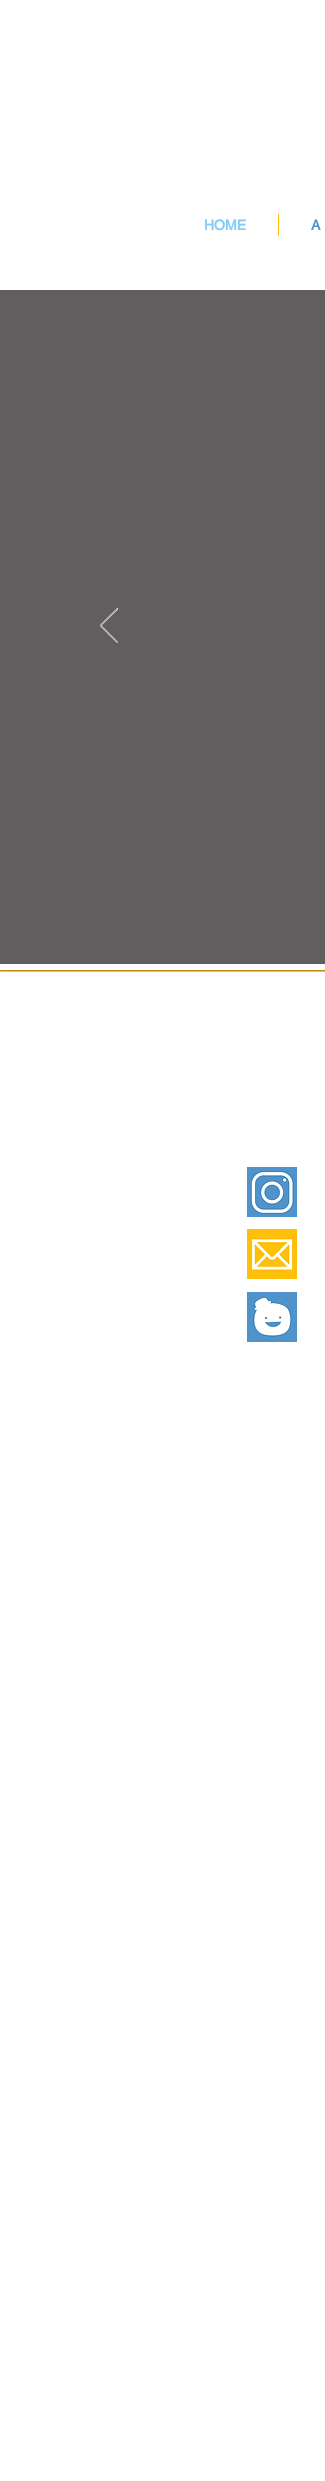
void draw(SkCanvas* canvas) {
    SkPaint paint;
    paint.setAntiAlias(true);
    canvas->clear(0xFFFFFFFF);
    SkFont font1(fontMgr->matchFamilyStyle("helvetica", SkFontStyle::Bold()), 14);
    font1.setSubpixel(true);
    paint.setColor(0xFF7FCCF7);
    canvas->drawString("HOME", 204, 230, font1, paint);
    paint.setColor(0xFFFFC009);
    canvas->drawRect(SkRect::MakeXYWH(278, 214, 1, 22), paint);
    paint.setColor(0xFF5093CA);
    canvas->drawString("A", 311, 230, font1, paint);
    paint.setColor(0xFF605E5E);
    canvas->drawRect(SkRect::MakeXYWH(0, 290, 325, 674), paint);
    canvas->save();
    canvas->clipRect(SkRect::MakeXYWH(100, 608, 18, 35));
    paint.setStyle(SkPaint::kStroke_Style);
    paint.setStrokeWidth(0.9f);
    paint.setColor(0xFFE8E6E6);
    canvas->drawPath(SkPathBuilder().moveTo(117.5f, 643).lineTo(100, 625.5f).lineTo(117.5f, 608).lineTo(118, 609).lineTo(101, 625.5f).lineTo(118, 642.5f).close().detach(), paint);
    canvas->restore();
    paint.setStyle(SkPaint::kFill_Style);
    paint.setColor(0xFFFFC009);
    canvas->drawRoundRect(SkRect::MakeXYWH(0, 970, 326, 2), 1, 1, paint);
    paint.setColor(0x40000000);
    canvas->drawPath(SkPathBuilder().moveTo(1, 971).lineTo(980, 971).lineTo(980, 972).cubicTo(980, 971, 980, 970, 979, 970).lineTo(1, 970).cubicTo(0, 970, 0, 971, 0, 972).close().detach(), paint);
    canvas->drawImageRect(SkImages::DeferredFromEncodedData(SkData::MakeFromFileName("img1.png")), SkRect::MakeXYWH(247, 1167, 50, 50), SkSamplingOptions());
    canvas->drawImageRect(SkImages::DeferredFromEncodedData(SkData::MakeFromFileName("img2.png")), SkRect::MakeXYWH(247, 1229, 50, 50), SkSamplingOptions());
    canvas->drawImageRect(SkImages::DeferredFromEncodedData(SkData::MakeFromFileName("img3.png")), SkRect::MakeXYWH(247, 1292, 50, 50), SkSamplingOptions());
}
